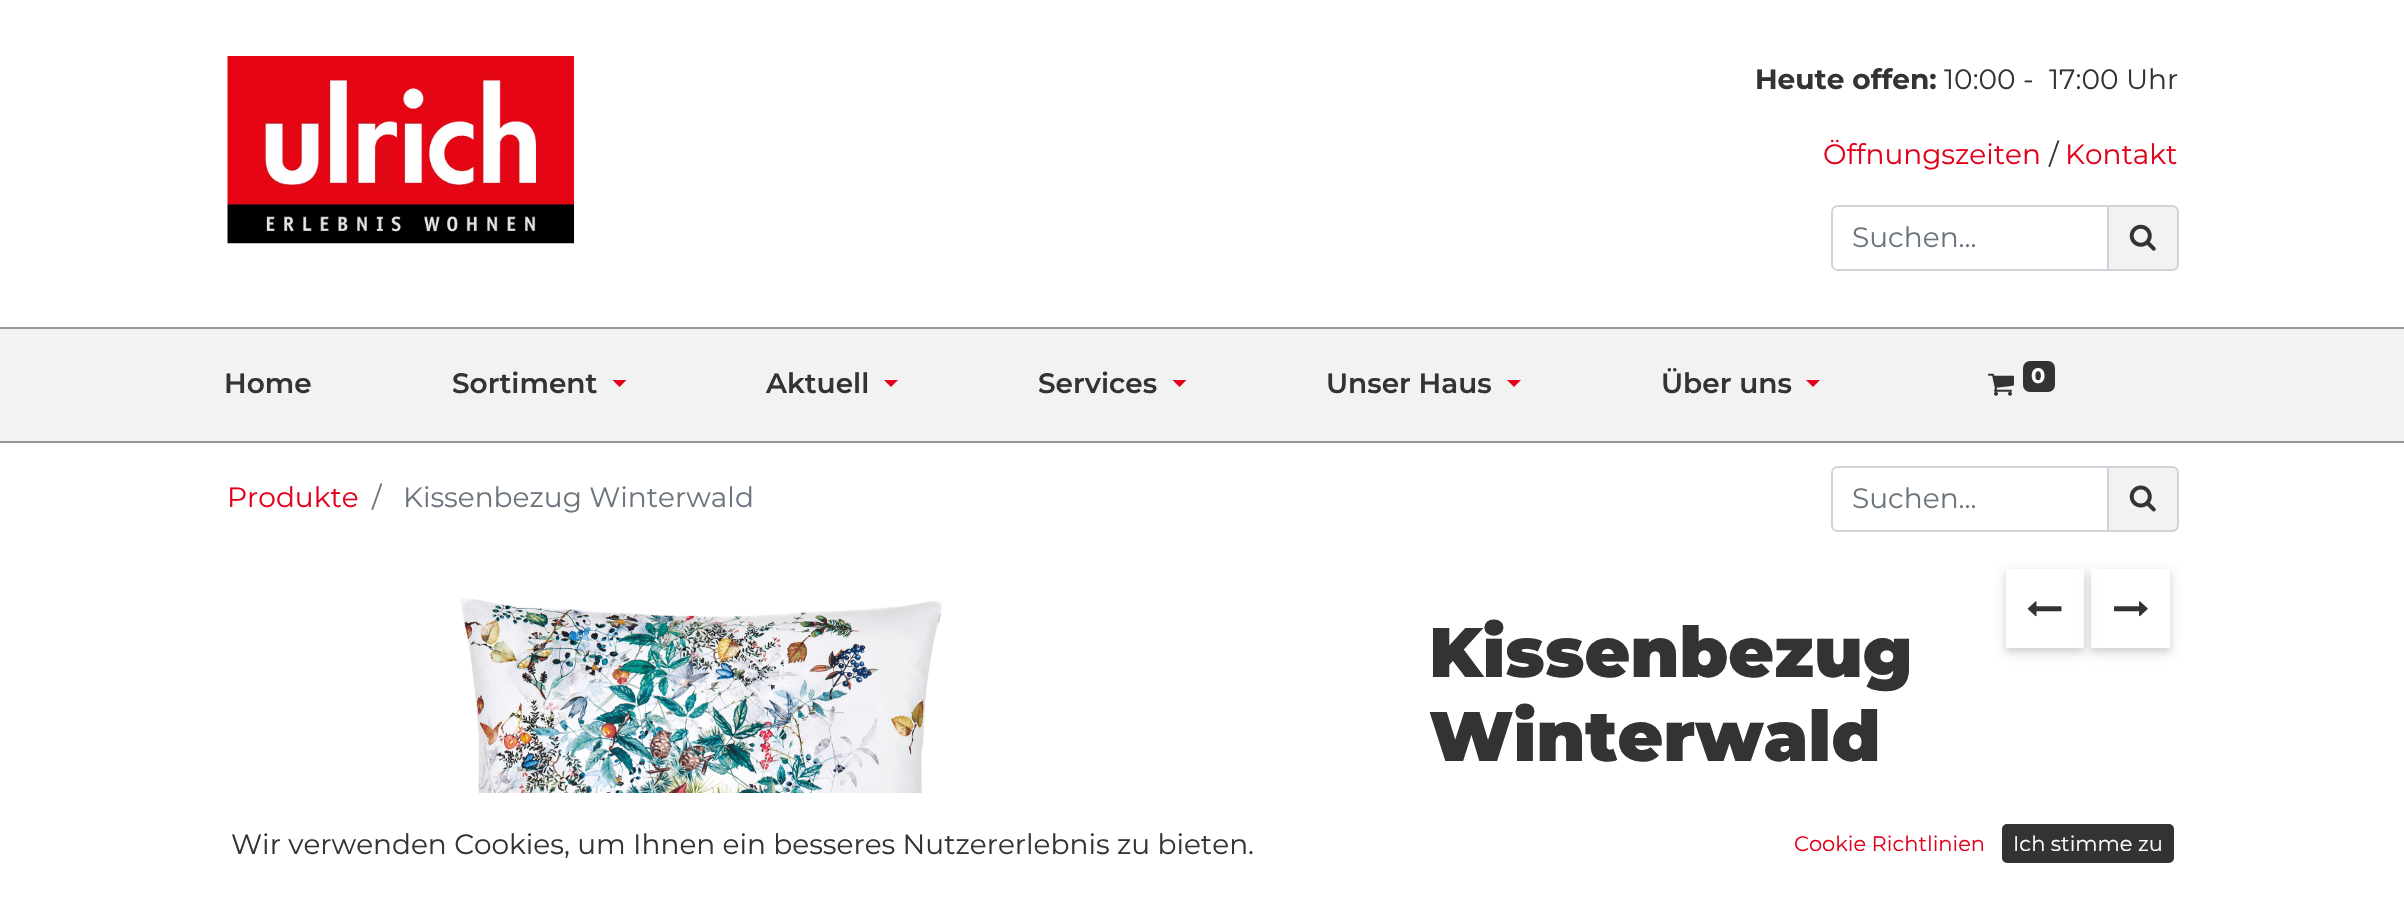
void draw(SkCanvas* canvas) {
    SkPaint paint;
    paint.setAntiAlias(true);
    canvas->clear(0xFFFFFFFF);
    canvas->drawImageRect(SkImages::DeferredFromEncodedData(SkData::MakeFromFileName("img1.png")), SkRect::MakeXYWH(227, 56, 347, 188), SkSamplingOptions());
    SkFont font1(fontMgr->matchFamilyStyle("Montserrat", SkFontStyle::Bold()), 28);
    font1.setSubpixel(true);
    paint.setColor(0xFF333333);
    canvas->drawString("Heute offen:", 1755, 89, font1, paint);
    SkFont font2(fontMgr->matchFamilyStyle("Montserrat", SkFontStyle::Normal()), 28);
    font2.setSubpixel(true);
    canvas->drawString("10:00 -", 1944, 89, font2, paint);
    canvas->drawString("17:00 Uhr", 2049, 89, font2, paint);
    paint.setColor(0xFFE3001B);
    canvas->drawString("Öffnungszeiten", 1823, 164, font2, paint);
    paint.setColor(0xFF333333);
    canvas->drawString("/", 2049, 164, font2, paint);
    paint.setColor(0xFFE3001B);
    canvas->drawString("Kontakt", 2065, 164, font2, paint);
    paint.setStyle(SkPaint::kStroke_Style);
    paint.setStrokeWidth(2);
    paint.setColor(0xFFCED4DA);
    canvas->drawPath(SkPathBuilder().moveTo(1838, 206).lineTo(2108, 206).lineTo(2108, 270).lineTo(1838, 270).cubicTo(1834.5f, 270, 1832, 267.5f, 1832, 264).lineTo(1832, 212).cubicTo(1832, 208.5f, 1834.5f, 206, 1838, 206).close().detach(), paint);
    paint.setStyle(SkPaint::kFill_Style);
    paint.setColor(0xFF6C757D);
    canvas->drawString("Suchen...", 1852, 247, font2, paint);
    paint.setColor(0xFFF2F2F2);
    canvas->drawPath(SkPathBuilder().moveTo(2108, 206).lineTo(2172, 206).cubicTo(2175.5f, 206, 2178, 208.5f, 2178, 212).lineTo(2178, 264).cubicTo(2178, 267.5f, 2175.5f, 270, 2172, 270).lineTo(2108, 270).close().detach(), paint);
    paint.setStyle(SkPaint::kStroke_Style);
    paint.setColor(0xFFCED4DA);
    canvas->drawPath(SkPathBuilder().moveTo(2108, 206).lineTo(2172, 206).cubicTo(2175.5f, 206, 2178, 208.5f, 2178, 212).lineTo(2178, 264).cubicTo(2178, 267.5f, 2175.5f, 270, 2172, 270).lineTo(2108, 270).close().detach(), paint);
    canvas->drawImageRect(SkImages::DeferredFromEncodedData(SkData::MakeFromFileName("img2.png")), SkRect::MakeXYWH(2129, 224, 27, 27), SkSamplingOptions());
    paint.setStyle(SkPaint::kFill_Style);
    paint.setColor(0xFFF2F2F2);
    canvas->drawRect(SkRect::MakeXYWH(0, 329, 2404, 112), paint);
    paint.setColor(0xFF999999);
    canvas->drawRect(SkRect::MakeXYWH(0, 327, 2404, 2), paint);
    canvas->drawRect(SkRect::MakeXYWH(0, 441, 2404, 2), paint);
    SkFont font3(fontMgr->matchFamilyStyle("Montserrat", SkFontStyle(600, SkFontStyle::kNormal_Width, SkFontStyle::kUpright_Slant)), 28);
    font3.setSubpixel(true);
    paint.setColor(0xFF333333);
    canvas->drawString("Home", 224, 393, font3, paint);
    canvas->drawString("Sortiment", 452, 393, font3, paint);
    paint.setColor(0xFFE3001B);
    canvas->drawPath(SkPathBuilder().moveTo(612.5f, 380).lineTo(626.5f, 380).lineTo(619.5f, 387).close().detach(), paint);
    paint.setColor(0xFF333333);
    canvas->drawString("Aktuell", 766, 393, font3, paint);
    paint.setColor(0xFFE3001B);
    canvas->drawPath(SkPathBuilder().moveTo(884, 380).lineTo(898, 380).lineTo(891, 387).close().detach(), paint);
    paint.setColor(0xFF333333);
    canvas->drawString("Services", 1038, 393, font3, paint);
    paint.setColor(0xFFE3001B);
    canvas->drawPath(SkPathBuilder().moveTo(1172.5f, 380).lineTo(1186.5f, 380).lineTo(1179.5f, 387).close().detach(), paint);
    paint.setColor(0xFF333333);
    canvas->drawString("Unser Haus", 1326, 393, font3, paint);
    paint.setColor(0xFFE3001B);
    canvas->drawPath(SkPathBuilder().moveTo(1507, 380).lineTo(1521, 380).lineTo(1514, 387).close().detach(), paint);
    paint.setColor(0xFF333333);
    canvas->drawString("Über uns", 1661, 393, font3, paint);
    paint.setColor(0xFFE3001B);
    canvas->drawPath(SkPathBuilder().moveTo(1806, 380).lineTo(1820, 380).lineTo(1813, 387).close().detach(), paint);
    canvas->drawImageRect(SkImages::DeferredFromEncodedData(SkData::MakeFromFileName("img3.png")), SkRect::MakeXYWH(1988, 373, 26, 23), SkSamplingOptions());
    paint.setColor(0xFF333333);
    canvas->drawRoundRect(SkRect::MakeXYWH(2023, 361, 32, 31), 7, 7, paint);
    SkFont font4(fontMgr->matchFamilyStyle("Montserrat", SkFontStyle::Bold()), 21);
    font4.setSubpixel(true);
    paint.setColor(0xFFFFFFFF);
    canvas->drawString("0", 2031, 383, font4, paint);
    paint.setColor(0xFFE3001B);
    canvas->drawString("Produkte", 227, 507, font2, paint);
    paint.setColor(0xFF6C757D);
    canvas->drawString("/", 372, 507, font2, paint);
    canvas->drawString("Kissenbezug Winterwald", 403, 507, font2, paint);
    paint.setStyle(SkPaint::kStroke_Style);
    paint.setColor(0xFFCED4DA);
    canvas->drawPath(SkPathBuilder().moveTo(1838, 467).lineTo(2108, 467).lineTo(2108, 531).lineTo(1838, 531).cubicTo(1834.5f, 531, 1832, 528.5f, 1832, 525).lineTo(1832, 473).cubicTo(1832, 469.5f, 1834.5f, 467, 1838, 467).close().detach(), paint);
    paint.setStyle(SkPaint::kFill_Style);
    paint.setColor(0xFF6C757D);
    canvas->drawString("Suchen...", 1852, 508, font2, paint);
    paint.setColor(0xFFF2F2F2);
    canvas->drawPath(SkPathBuilder().moveTo(2108, 467).lineTo(2172, 467).cubicTo(2175.5f, 467, 2178, 469.5f, 2178, 473).lineTo(2178, 525).cubicTo(2178, 528.5f, 2175.5f, 531, 2172, 531).lineTo(2108, 531).close().detach(), paint);
    paint.setStyle(SkPaint::kStroke_Style);
    paint.setColor(0xFFCED4DA);
    canvas->drawPath(SkPathBuilder().moveTo(2108, 467).lineTo(2172, 467).cubicTo(2175.5f, 467, 2178, 469.5f, 2178, 473).lineTo(2178, 525).cubicTo(2178, 528.5f, 2175.5f, 531, 2172, 531).lineTo(2108, 531).close().detach(), paint);
    canvas->drawImageRect(SkImages::DeferredFromEncodedData(SkData::MakeFromFileName("img4.png")), SkRect::MakeXYWH(2129, 485, 27, 27), SkSamplingOptions());
    canvas->drawImageRect(SkImages::DeferredFromEncodedData(SkData::MakeFromFileName("img5.png")), SkRect::MakeXYWH(461, 598, 481, 195), SkSamplingOptions());
    SkFont font5(fontMgr->matchFamilyStyle("Montserrat", SkFontStyle(900, SkFontStyle::kNormal_Width, SkFontStyle::kUpright_Slant)), 70);
    font5.setSubpixel(true);
    paint.setStyle(SkPaint::kFill_Style);
    paint.setColor(0xFF333333);
    canvas->drawString("Kissenbezug", 1429, 677, font5, paint);
    canvas->drawString("Winterwald", 1429, 761, font5, paint);
    canvas->save();
    canvas->clipPath(SkPathBuilder(SkPathFillType::kEvenOdd).moveTo(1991, 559).lineTo(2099, 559).lineTo(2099, 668).lineTo(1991, 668).close().moveTo(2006, 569).lineTo(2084, 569).lineTo(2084, 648).lineTo(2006, 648).close().detach(), true);
    paint.setColor(0x1A000000);
    paint.setMaskFilter(SkMaskFilter::MakeBlur(kNormal_SkBlurStyle, 4.5f));
    canvas->drawRect(SkRect::MakeXYWH(2006, 574, 78, 79), paint);
    paint.setMaskFilter(nullptr);
    canvas->restore();
    canvas->save();
    canvas->clipPath(SkPathBuilder(SkPathFillType::kEvenOdd).moveTo(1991, 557).lineTo(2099, 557).lineTo(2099, 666).lineTo(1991, 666).close().moveTo(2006, 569).lineTo(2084, 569).lineTo(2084, 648).lineTo(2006, 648).close().detach(), true);
    paint.setMaskFilter(SkMaskFilter::MakeBlur(kNormal_SkBlurStyle, 4.5f));
    canvas->drawRect(SkRect::MakeXYWH(2006, 572, 78, 79), paint);
    paint.setMaskFilter(nullptr);
    canvas->restore();
    canvas->drawImageRect(SkImages::DeferredFromEncodedData(SkData::MakeFromFileName("img6.png")), SkRect::MakeXYWH(2027, 601, 35, 16), SkSamplingOptions());
    canvas->save();
    canvas->clipPath(SkPathBuilder(SkPathFillType::kEvenOdd).moveTo(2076, 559).lineTo(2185, 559).lineTo(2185, 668).lineTo(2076, 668).close().moveTo(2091, 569).lineTo(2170, 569).lineTo(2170, 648).lineTo(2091, 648).close().detach(), true);
    paint.setMaskFilter(SkMaskFilter::MakeBlur(kNormal_SkBlurStyle, 4.5f));
    canvas->drawRect(SkRect::MakeXYWH(2091, 574, 79, 79), paint);
    paint.setMaskFilter(nullptr);
    canvas->restore();
    canvas->save();
    canvas->clipPath(SkPathBuilder(SkPathFillType::kEvenOdd).moveTo(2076, 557).lineTo(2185, 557).lineTo(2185, 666).lineTo(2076, 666).close().moveTo(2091, 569).lineTo(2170, 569).lineTo(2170, 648).lineTo(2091, 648).close().detach(), true);
    paint.setMaskFilter(SkMaskFilter::MakeBlur(kNormal_SkBlurStyle, 4.5f));
    canvas->drawRect(SkRect::MakeXYWH(2091, 572, 79, 79), paint);
    paint.setMaskFilter(nullptr);
    canvas->restore();
    canvas->drawImageRect(SkImages::DeferredFromEncodedData(SkData::MakeFromFileName("img7.png")), SkRect::MakeXYWH(2114, 601, 34, 16), SkSamplingOptions());
    paint.setColor(0xFF333333);
    canvas->drawString("Wir verwenden Cookies, um Ihnen ein besseres Nutzererlebnis zu bieten.", 231, 854, font2, paint);
    SkFont font6(fontMgr->matchFamilyStyle("Montserrat", SkFontStyle::Normal()), 21);
    font6.setSubpixel(true);
    paint.setColor(0xFFE3001B);
    canvas->drawString("Cookie Richtlinien", 1794, 851, font6, paint);
    paint.setColor(0xFF333333);
    canvas->drawRoundRect(SkRect::MakeXYWH(2003, 825, 170, 37), 4, 4, paint);
    paint.setStyle(SkPaint::kStroke_Style);
    canvas->drawRoundRect(SkRect::MakeXYWH(2003, 825, 170, 37), 4, 4, paint);
    paint.setStyle(SkPaint::kFill_Style);
    paint.setColor(0xFFFFFFFF);
    canvas->drawString("Ich stimme zu", 2013, 851, font6, paint);
}
